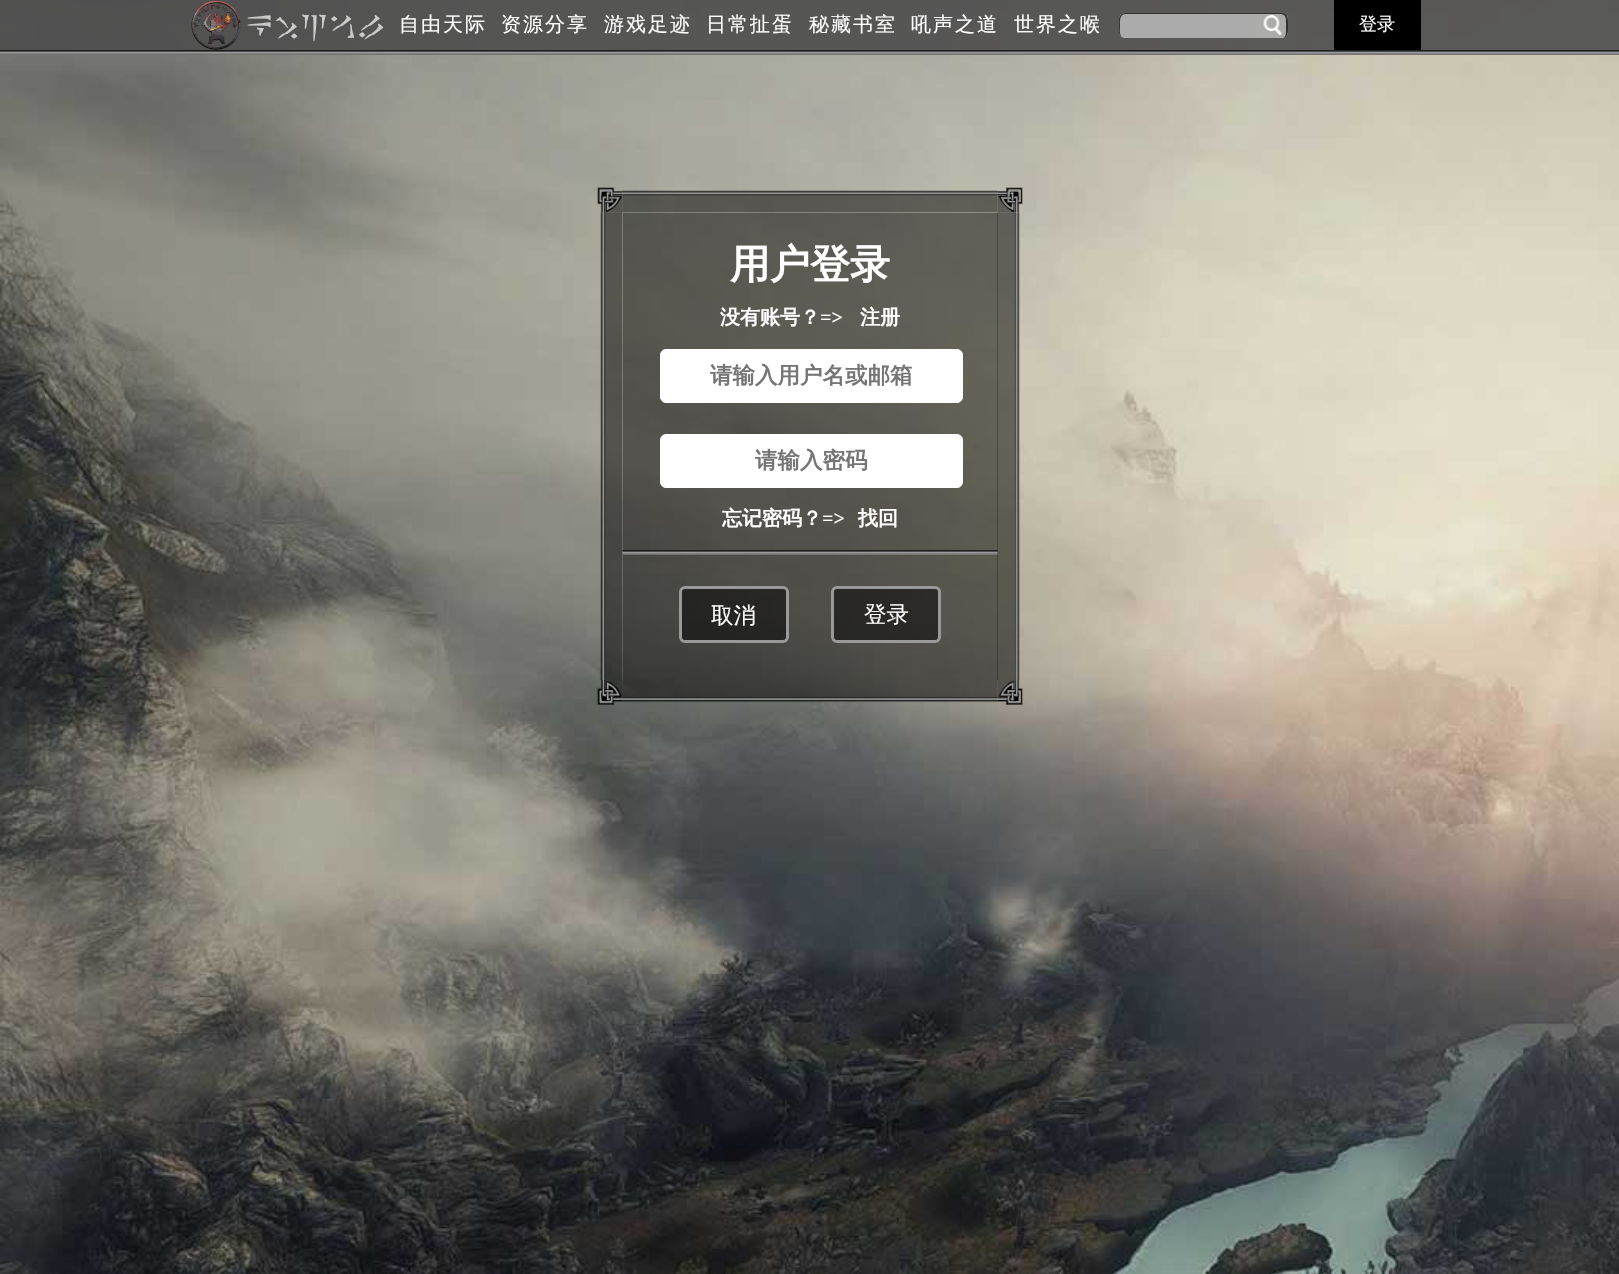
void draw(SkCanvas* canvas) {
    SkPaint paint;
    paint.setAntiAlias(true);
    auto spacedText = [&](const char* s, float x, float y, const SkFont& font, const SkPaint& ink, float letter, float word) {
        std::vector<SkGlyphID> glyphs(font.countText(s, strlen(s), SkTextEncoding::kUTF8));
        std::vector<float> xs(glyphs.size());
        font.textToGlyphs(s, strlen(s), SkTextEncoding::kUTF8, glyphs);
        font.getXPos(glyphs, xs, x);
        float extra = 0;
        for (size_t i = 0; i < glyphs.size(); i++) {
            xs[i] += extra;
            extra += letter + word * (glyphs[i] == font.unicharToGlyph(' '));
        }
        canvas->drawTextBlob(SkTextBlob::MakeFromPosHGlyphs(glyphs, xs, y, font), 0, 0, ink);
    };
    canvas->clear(0xFFFFFFFF);
    canvas->drawImageRect(SkImages::DeferredFromEncodedData(SkData::MakeFromFileName("img1.png")), SkRect::MakeXYWH(0, 0, 1619, 1274), SkSamplingOptions());
    paint.setColor(0xE64D4D4D);
    canvas->drawRect(SkRect::MakeXYWH(0, 0, 1619, 55), paint);
    canvas->drawImageRect(SkImages::DeferredFromEncodedData(SkData::MakeFromFileName("img2.png")), SkRect::MakeXYWH(0, 50, 1619, 5), SkSamplingOptions());
    canvas->drawImageRect(SkImages::DeferredFromEncodedData(SkData::MakeFromFileName("img3.png")), SkRect::MakeXYWH(191, 0, 51, 50), SkSamplingOptions());
    SkFont font1(fontMgr->matchFamilyStyle("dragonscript", SkFontStyle::Normal()), 32.5f);
    font1.setSubpixel(true);
    paint.setColor(0xFFCCCCCC);
    canvas->drawString("K2Z1L", 245, 38, font1, paint);
    SkFont font2(fontMgr->matchFamilyStyle("WenQuanYi Zen Hei", SkFontStyle(500, SkFontStyle::kNormal_Width, SkFontStyle::kUpright_Slant)), 20);
    font2.setSubpixel(true);
    paint.setColor(0xFFFFFFFF);
    spacedText("自由天际", 399, 31, font2, paint, 2, 0);
    spacedText("资源分享", 501, 31, font2, paint, 2, 0);
    spacedText("游戏足迹", 604, 31, font2, paint, 2, 0);
    spacedText("日常扯蛋", 706, 31, font2, paint, 2, 0);
    spacedText("秘藏书室", 809, 31, font2, paint, 2, 0);
    spacedText("吼声之道", 911, 31, font2, paint, 2, 0);
    spacedText("世界之喉", 1014, 31, font2, paint, 2, 0);
    paint.setColor(0xFFACABAB);
    canvas->drawPath(SkPathBuilder().moveTo(1125, 13).lineTo(1256, 13).lineTo(1256, 38).lineTo(1125, 38).cubicTo(1121.5f, 38, 1119, 35.5f, 1119, 32).lineTo(1119, 19).cubicTo(1119, 15.5f, 1121.5f, 13, 1125, 13).close().detach(), paint);
    paint.setColor(0xFF333333);
    canvas->drawPath(SkPathBuilder().moveTo(1126, 14).lineTo(1256, 14).lineTo(1256, 13).lineTo(1125, 13).cubicTo(1122, 13, 1119, 16, 1119, 19).lineTo(1119, 32).cubicTo(1119, 34, 1120, 36, 1122, 37).cubicTo(1119, 34, 1120, 30, 1120, 26).cubicTo(1120, 22, 1119, 14, 1126, 14).close().detach(), paint);
    paint.setColor(0xFFACACAB);
    canvas->drawPath(SkPathBuilder().moveTo(1256, 13).lineTo(1282, 13).cubicTo(1285.5f, 13, 1288, 15.5f, 1288, 19).lineTo(1288, 32).cubicTo(1288, 35.5f, 1285.5f, 38, 1282, 38).lineTo(1256, 38).close().detach(), paint);
    canvas->drawImageRect(SkImages::DeferredFromEncodedData(SkData::MakeFromFileName("img4.png")), SkRect::MakeXYWH(1263, 15, 19, 20), SkSamplingOptions());
    paint.setColor(0xFF333333);
    canvas->drawPath(SkPathBuilder().moveTo(1256, 13).lineTo(1256, 14).lineTo(1276, 14).cubicTo(1286, 14, 1286, 15.5f, 1286, 23.5f).lineTo(1286, 28.5f).cubicTo(1286, 33.5f, 1286, 36.5f, 1283.5f, 38).cubicTo(1289, 36.5f, 1288, 30, 1288, 25.5f).cubicTo(1288, 21, 1289, 13, 1282, 13).close().detach(), paint);
    paint.setColor(0xFF000000);
    canvas->drawRect(SkRect::MakeXYWH(1334, 0, 87, 50), paint);
    SkFont font3(fontMgr->matchFamilyStyle("WenQuanYi Zen Hei", SkFontStyle(500, SkFontStyle::kNormal_Width, SkFontStyle::kUpright_Slant)), 18);
    font3.setSubpixel(true);
    paint.setColor(0xFFFFFFFF);
    canvas->drawString("登录", 1359, 30, font3, paint);
    paint.setColor(0x80000000);
    canvas->drawRect(SkRect::MakeXYWH(623, 213, 375, 467), paint);
    canvas->drawImageRect(SkImages::DeferredFromEncodedData(SkData::MakeFromFileName("img5.png")), SkRect::MakeXYWH(597, 187, 426, 518), SkSamplingOptions());
    SkFont font4(fontMgr->matchFamilyStyle("WenQuanYi Zen Hei", SkFontStyle::Bold()), 40);
    font4.setSubpixel(true);
    paint.setColor(0xFFFFFFFF);
    canvas->drawString("用户登录", 730, 278, font4, paint);
    SkFont font5(fontMgr->matchFamilyStyle("WenQuanYi Zen Hei", SkFontStyle::Bold()), 20);
    font5.setSubpixel(true);
    canvas->drawString("没有账号？", 720, 324, font5, paint);
    SkFont font6(fontMgr->matchFamilyStyle("Liberation Serif", SkFontStyle::Bold()), 20);
    font6.setSubpixel(true);
    canvas->drawString("=>", 820, 324, font6, paint);
    canvas->drawString("注册", 860, 324, font5, paint);
    canvas->drawRoundRect(SkRect::MakeXYWH(660.5f, 349.5f, 302, 53), 5.5f, 5.5f, paint);
    paint.setStyle(SkPaint::kStroke_Style);
    paint.setStrokeWidth(1);
    canvas->drawRoundRect(SkRect::MakeXYWH(660.5f, 349.5f, 302, 53), 5.5f, 5.5f, paint);
    SkFont font7(fontMgr->matchFamilyStyle("WenQuanYi Zen Hei", SkFontStyle::Bold()), 22.5f);
    font7.setSubpixel(true);
    paint.setStyle(SkPaint::kFill_Style);
    paint.setColor(0xFF757575);
    canvas->drawString("请输入用户名或邮箱", 710, 383, font7, paint);
    paint.setColor(0xFFFFFFFF);
    canvas->drawRoundRect(SkRect::MakeXYWH(660.5f, 434.5f, 302, 53), 5.5f, 5.5f, paint);
    paint.setStyle(SkPaint::kStroke_Style);
    canvas->drawRoundRect(SkRect::MakeXYWH(660.5f, 434.5f, 302, 53), 5.5f, 5.5f, paint);
    paint.setStyle(SkPaint::kFill_Style);
    paint.setColor(0xFF757575);
    canvas->drawString("请输入密码", 755, 468, font7, paint);
    paint.setColor(0xFFFFFFFF);
    canvas->drawString("忘记密码？", 722, 525, font5, paint);
    canvas->drawString("=>", 822, 525, font6, paint);
    canvas->drawString("找回", 858, 525, font5, paint);
    canvas->drawImageRect(SkImages::DeferredFromEncodedData(SkData::MakeFromFileName("img6.png")), SkRect::MakeXYWH(622, 550, 376, 5), SkSamplingOptions());
    paint.setColor(0x80000000);
    canvas->drawRoundRect(SkRect::MakeXYWH(680.5f, 587.5f, 107, 54), 4.5f, 4.5f, paint);
    paint.setStyle(SkPaint::kStroke_Style);
    paint.setStrokeWidth(3);
    paint.setColor(0xFF999999);
    canvas->drawRoundRect(SkRect::MakeXYWH(680.5f, 587.5f, 107, 54), 4.5f, 4.5f, paint);
    SkFont font8(fontMgr->matchFamilyStyle("WenQuanYi Zen Hei", SkFontStyle(500, SkFontStyle::kNormal_Width, SkFontStyle::kUpright_Slant)), 22.5f);
    font8.setSubpixel(true);
    paint.setStyle(SkPaint::kFill_Style);
    paint.setColor(0xFFFFFFFF);
    canvas->drawString("取消", 711, 623, font8, paint);
    paint.setColor(0x80000000);
    canvas->drawRoundRect(SkRect::MakeXYWH(832.5f, 587.5f, 107, 54), 4.5f, 4.5f, paint);
    paint.setStyle(SkPaint::kStroke_Style);
    paint.setColor(0xFF999999);
    canvas->drawRoundRect(SkRect::MakeXYWH(832.5f, 587.5f, 107, 54), 4.5f, 4.5f, paint);
    paint.setStyle(SkPaint::kFill_Style);
    paint.setColor(0xFFFFFFFF);
    canvas->drawString("登录", 864, 622, font8, paint);
}
